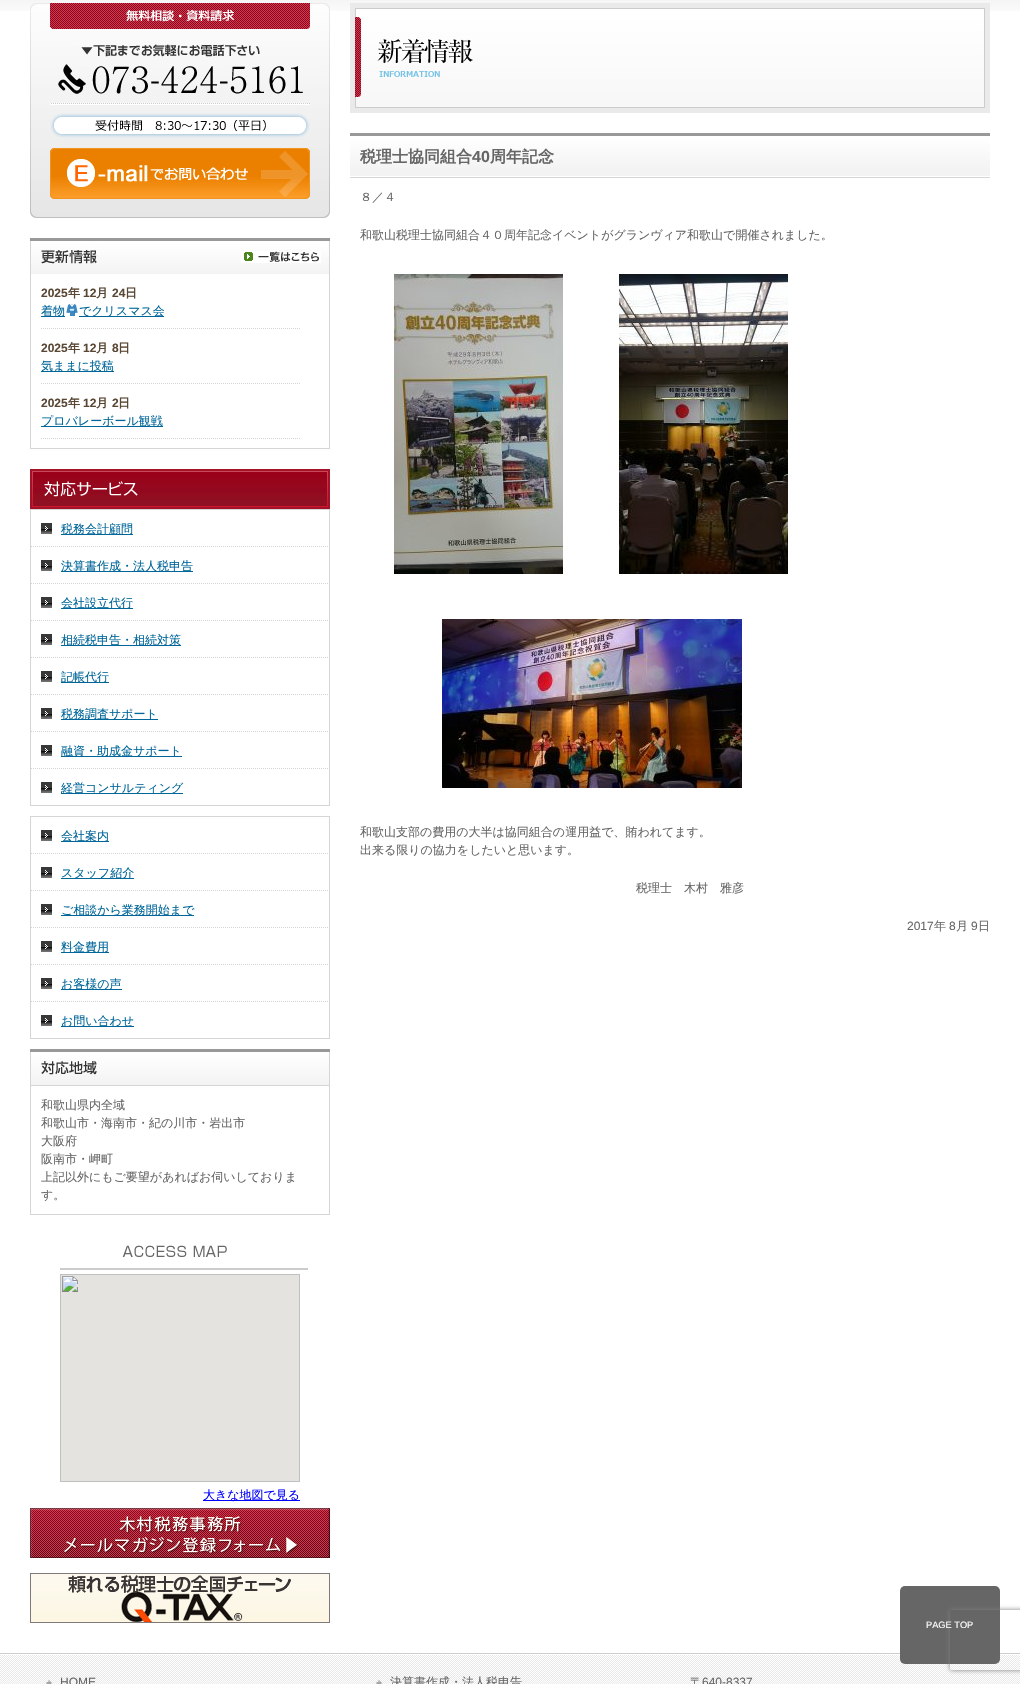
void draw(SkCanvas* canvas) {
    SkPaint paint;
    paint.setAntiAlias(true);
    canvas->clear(0xFFFFFFFF);
    canvas->drawImageRect(SkImages::DeferredFromEncodedData(SkData::MakeFromFileName("img1.png")), SkRect::MakeXYWH(0, 0, 1020, 11), SkSamplingOptions());
    canvas->drawImageRect(SkImages::DeferredFromEncodedData(SkData::MakeFromFileName("img2.png")), SkRect::MakeXYWH(30, 3, 300, 215), SkSamplingOptions());
    canvas->drawImageRect(SkImages::DeferredFromEncodedData(SkData::MakeFromFileName("img3.png")), SkRect::MakeXYWH(159, 3, 69, 14), SkSamplingOptions());
    canvas->drawImageRect(SkImages::DeferredFromEncodedData(SkData::MakeFromFileName("img4.png")), SkRect::MakeXYWH(50, 148, 260, 51), SkSamplingOptions());
    canvas->drawImageRect(SkImages::DeferredFromEncodedData(SkData::MakeFromFileName("img5.png")), SkRect::MakeXYWH(30, 238, 300, 36), SkSamplingOptions());
    canvas->drawImageRect(SkImages::DeferredFromEncodedData(SkData::MakeFromFileName("img6.png")), SkRect::MakeXYWH(241, 251, 80, 12), SkSamplingOptions());
    paint.setColor(0xFFD5D5D5);
    canvas->drawRect(SkRect::MakeXYWH(329, 274, 1, 175), paint);
    canvas->drawRect(SkRect::MakeXYWH(30, 448, 300, 1), paint);
    canvas->drawRect(SkRect::MakeXYWH(30, 274, 1, 175), paint);
    paint.setStyle(SkPaint::kStroke_Style);
    paint.setStrokeWidth(1);
    paint.setPathEffect(SkDashPathEffect::Make({{1, 1}}, 0));
    canvas->drawPath(SkPathBuilder().moveTo(41, 328.5f).lineTo(301, 328.5f).detach(), paint);
    paint.setPathEffect(nullptr);
    SkFont font1(fontMgr->matchFamilyStyle("Liberation Sans", SkFontStyle::Bold()), 12);
    font1.setSubpixel(true);
    paint.setStyle(SkPaint::kFill_Style);
    paint.setColor(0xFF594734);
    canvas->drawString("2025", 41, 297, font1, paint);
    SkFont font2(fontMgr->matchFamilyStyle("WenQuanYi Zen Hei", SkFontStyle::Bold()), 12);
    font2.setSubpixel(true);
    canvas->drawString("年", 68, 297, font2, paint);
    canvas->drawString("12", 83, 297, font1, paint);
    canvas->drawString("月", 96, 297, font2, paint);
    canvas->drawString("24", 112, 297, font1, paint);
    canvas->drawString("日", 125, 297, font2, paint);
    paint.setColor(0xFF006699);
    canvas->drawRect(SkRect::MakeXYWH(41, 316, 24, 1), paint);
    SkFont font3(fontMgr->matchFamilyStyle("WenQuanYi Zen Hei", SkFontStyle(500, SkFontStyle::kNormal_Width, SkFontStyle::kUpright_Slant)), 12);
    font3.setSubpixel(true);
    canvas->drawString("着物", 41, 315, font3, paint);
    canvas->drawImageRect(SkImages::DeferredFromEncodedData(SkData::MakeFromFileName("img7.png")), SkRect::MakeXYWH(66, 304, 12, 12), SkSamplingOptions());
    canvas->drawRect(SkRect::MakeXYWH(79, 316, 85, 1), paint);
    canvas->drawString("でクリスマス会", 79, 315, font3, paint);
    paint.setStyle(SkPaint::kStroke_Style);
    paint.setColor(0xFFD5D5D5);
    paint.setPathEffect(SkDashPathEffect::Make({{1, 1}}, 0));
    canvas->drawPath(SkPathBuilder().moveTo(41, 383.5f).lineTo(301, 383.5f).detach(), paint);
    paint.setPathEffect(nullptr);
    paint.setStyle(SkPaint::kFill_Style);
    paint.setColor(0xFF594734);
    canvas->drawString("2025", 41, 352, font1, paint);
    canvas->drawString("年", 68, 352, font2, paint);
    canvas->drawString("12", 83, 352, font1, paint);
    canvas->drawString("月", 96, 352, font2, paint);
    canvas->drawString("8", 112, 352, font1, paint);
    canvas->drawString("日", 118, 352, font2, paint);
    paint.setColor(0xFF006699);
    canvas->drawRect(SkRect::MakeXYWH(41, 371, 73, 1), paint);
    canvas->drawString("気ままに投稿", 41, 370, font3, paint);
    paint.setStyle(SkPaint::kStroke_Style);
    paint.setColor(0xFFD5D5D5);
    paint.setPathEffect(SkDashPathEffect::Make({{1, 1}}, 0));
    canvas->drawPath(SkPathBuilder().moveTo(41, 438.5f).lineTo(301, 438.5f).detach(), paint);
    paint.setPathEffect(nullptr);
    paint.setStyle(SkPaint::kFill_Style);
    paint.setColor(0xFF594734);
    canvas->drawString("2025", 41, 407, font1, paint);
    canvas->drawString("年", 68, 407, font2, paint);
    canvas->drawString("12", 83, 407, font1, paint);
    canvas->drawString("月", 96, 407, font2, paint);
    canvas->drawString("2", 112, 407, font1, paint);
    canvas->drawString("日", 118, 407, font2, paint);
    paint.setColor(0xFF006699);
    canvas->drawRect(SkRect::MakeXYWH(41, 426, 122, 1), paint);
    canvas->drawString("プロバレーボール観戦", 41, 425, font3, paint);
    canvas->drawImageRect(SkImages::DeferredFromEncodedData(SkData::MakeFromFileName("img8.png")), SkRect::MakeXYWH(30, 469, 300, 40), SkSamplingOptions());
    paint.setStyle(SkPaint::kStroke_Style);
    paint.setColor(0xFFD5D5D5);
    canvas->drawRect(SkRect::MakeXYWH(30.5f, 509.5f, 299, 296), paint);
    canvas->drawImageRect(SkImages::DeferredFromEncodedData(SkData::MakeFromFileName("img9.png")), SkRect::MakeXYWH(41, 523, 11, 11), SkSamplingOptions());
    paint.setPathEffect(SkDashPathEffect::Make({{1, 1}}, 0));
    canvas->drawPath(SkPathBuilder().moveTo(31, 546.5f).lineTo(329, 546.5f).detach(), paint);
    paint.setPathEffect(nullptr);
    paint.setStyle(SkPaint::kFill_Style);
    paint.setColor(0xFF006699);
    canvas->drawRect(SkRect::MakeXYWH(61, 534, 72, 1), paint);
    canvas->drawString("税務会計顧問", 61, 533, font3, paint);
    canvas->drawImageRect(SkImages::DeferredFromEncodedData(SkData::MakeFromFileName("img9.png")), SkRect::MakeXYWH(41, 560, 11, 11), SkSamplingOptions());
    paint.setStyle(SkPaint::kStroke_Style);
    paint.setColor(0xFFD5D5D5);
    paint.setPathEffect(SkDashPathEffect::Make({{1, 1}}, 0));
    canvas->drawPath(SkPathBuilder().moveTo(31, 583.5f).lineTo(329, 583.5f).detach(), paint);
    paint.setPathEffect(nullptr);
    paint.setStyle(SkPaint::kFill_Style);
    paint.setColor(0xFF006699);
    canvas->drawRect(SkRect::MakeXYWH(61, 571, 132, 1), paint);
    canvas->drawString("決算書作成・法人税申告", 61, 570, font3, paint);
    canvas->drawImageRect(SkImages::DeferredFromEncodedData(SkData::MakeFromFileName("img9.png")), SkRect::MakeXYWH(41, 597, 11, 11), SkSamplingOptions());
    paint.setStyle(SkPaint::kStroke_Style);
    paint.setColor(0xFFD5D5D5);
    paint.setPathEffect(SkDashPathEffect::Make({{1, 1}}, 0));
    canvas->drawPath(SkPathBuilder().moveTo(31, 620.5f).lineTo(329, 620.5f).detach(), paint);
    paint.setPathEffect(nullptr);
    paint.setStyle(SkPaint::kFill_Style);
    paint.setColor(0xFF006699);
    canvas->drawRect(SkRect::MakeXYWH(61, 608, 72, 1), paint);
    canvas->drawString("会社設立代行", 61, 607, font3, paint);
    canvas->drawImageRect(SkImages::DeferredFromEncodedData(SkData::MakeFromFileName("img9.png")), SkRect::MakeXYWH(41, 634, 11, 11), SkSamplingOptions());
    paint.setStyle(SkPaint::kStroke_Style);
    paint.setColor(0xFFD5D5D5);
    paint.setPathEffect(SkDashPathEffect::Make({{1, 1}}, 0));
    canvas->drawPath(SkPathBuilder().moveTo(31, 657.5f).lineTo(329, 657.5f).detach(), paint);
    paint.setPathEffect(nullptr);
    paint.setStyle(SkPaint::kFill_Style);
    paint.setColor(0xFF006699);
    canvas->drawRect(SkRect::MakeXYWH(61, 645, 120, 1), paint);
    canvas->drawString("相続税申告・相続対策", 61, 644, font3, paint);
    canvas->drawImageRect(SkImages::DeferredFromEncodedData(SkData::MakeFromFileName("img9.png")), SkRect::MakeXYWH(41, 671, 11, 11), SkSamplingOptions());
    paint.setStyle(SkPaint::kStroke_Style);
    paint.setColor(0xFFD5D5D5);
    paint.setPathEffect(SkDashPathEffect::Make({{1, 1}}, 0));
    canvas->drawPath(SkPathBuilder().moveTo(31, 694.5f).lineTo(329, 694.5f).detach(), paint);
    paint.setPathEffect(nullptr);
    paint.setStyle(SkPaint::kFill_Style);
    paint.setColor(0xFF006699);
    canvas->drawRect(SkRect::MakeXYWH(61, 682, 48, 1), paint);
    canvas->drawString("記帳代行", 61, 681, font3, paint);
    canvas->drawImageRect(SkImages::DeferredFromEncodedData(SkData::MakeFromFileName("img9.png")), SkRect::MakeXYWH(41, 708, 11, 11), SkSamplingOptions());
    paint.setStyle(SkPaint::kStroke_Style);
    paint.setColor(0xFFD5D5D5);
    paint.setPathEffect(SkDashPathEffect::Make({{1, 1}}, 0));
    canvas->drawPath(SkPathBuilder().moveTo(31, 731.5f).lineTo(329, 731.5f).detach(), paint);
    paint.setPathEffect(nullptr);
    paint.setStyle(SkPaint::kFill_Style);
    paint.setColor(0xFF006699);
    canvas->drawRect(SkRect::MakeXYWH(61, 719, 97, 1), paint);
    canvas->drawString("税務調査サポート", 61, 718, font3, paint);
    canvas->drawImageRect(SkImages::DeferredFromEncodedData(SkData::MakeFromFileName("img9.png")), SkRect::MakeXYWH(41, 745, 11, 11), SkSamplingOptions());
    paint.setStyle(SkPaint::kStroke_Style);
    paint.setColor(0xFFD5D5D5);
    paint.setPathEffect(SkDashPathEffect::Make({{1, 1}}, 0));
    canvas->drawPath(SkPathBuilder().moveTo(31, 768.5f).lineTo(329, 768.5f).detach(), paint);
    paint.setPathEffect(nullptr);
    paint.setStyle(SkPaint::kFill_Style);
    paint.setColor(0xFF006699);
    canvas->drawRect(SkRect::MakeXYWH(61, 756, 121, 1), paint);
    canvas->drawString("融資・助成金サポート", 61, 755, font3, paint);
    canvas->drawImageRect(SkImages::DeferredFromEncodedData(SkData::MakeFromFileName("img9.png")), SkRect::MakeXYWH(41, 782, 11, 11), SkSamplingOptions());
    canvas->drawRect(SkRect::MakeXYWH(61, 793, 122, 1), paint);
    canvas->drawString("経営コンサルティング", 61, 792, font3, paint);
    paint.setStyle(SkPaint::kStroke_Style);
    paint.setColor(0xFFD5D5D5);
    canvas->drawRect(SkRect::MakeXYWH(30.5f, 816.5f, 299, 222), paint);
    canvas->drawImageRect(SkImages::DeferredFromEncodedData(SkData::MakeFromFileName("img9.png")), SkRect::MakeXYWH(41, 830, 11, 11), SkSamplingOptions());
    paint.setPathEffect(SkDashPathEffect::Make({{1, 1}}, 0));
    canvas->drawPath(SkPathBuilder().moveTo(31, 853.5f).lineTo(329, 853.5f).detach(), paint);
    paint.setPathEffect(nullptr);
    paint.setStyle(SkPaint::kFill_Style);
    paint.setColor(0xFF006699);
    canvas->drawRect(SkRect::MakeXYWH(61, 841, 48, 1), paint);
    canvas->drawString("会社案内", 61, 840, font3, paint);
    canvas->drawImageRect(SkImages::DeferredFromEncodedData(SkData::MakeFromFileName("img9.png")), SkRect::MakeXYWH(41, 867, 11, 11), SkSamplingOptions());
    paint.setStyle(SkPaint::kStroke_Style);
    paint.setColor(0xFFD5D5D5);
    paint.setPathEffect(SkDashPathEffect::Make({{1, 1}}, 0));
    canvas->drawPath(SkPathBuilder().moveTo(31, 890.5f).lineTo(329, 890.5f).detach(), paint);
    paint.setPathEffect(nullptr);
    paint.setStyle(SkPaint::kFill_Style);
    paint.setColor(0xFF006699);
    canvas->drawRect(SkRect::MakeXYWH(61, 878, 73, 1), paint);
    canvas->drawString("スタッフ紹介", 61, 877, font3, paint);
    canvas->drawImageRect(SkImages::DeferredFromEncodedData(SkData::MakeFromFileName("img9.png")), SkRect::MakeXYWH(41, 904, 11, 11), SkSamplingOptions());
    paint.setStyle(SkPaint::kStroke_Style);
    paint.setColor(0xFFD5D5D5);
    paint.setPathEffect(SkDashPathEffect::Make({{1, 1}}, 0));
    canvas->drawPath(SkPathBuilder().moveTo(31, 927.5f).lineTo(329, 927.5f).detach(), paint);
    paint.setPathEffect(nullptr);
    paint.setStyle(SkPaint::kFill_Style);
    paint.setColor(0xFF006699);
    canvas->drawRect(SkRect::MakeXYWH(61, 915, 133, 1), paint);
    canvas->drawString("ご相談から業務開始まで", 61, 914, font3, paint);
    canvas->drawImageRect(SkImages::DeferredFromEncodedData(SkData::MakeFromFileName("img9.png")), SkRect::MakeXYWH(41, 941, 11, 11), SkSamplingOptions());
    paint.setStyle(SkPaint::kStroke_Style);
    paint.setColor(0xFFD5D5D5);
    paint.setPathEffect(SkDashPathEffect::Make({{1, 1}}, 0));
    canvas->drawPath(SkPathBuilder().moveTo(31, 964.5f).lineTo(329, 964.5f).detach(), paint);
    paint.setPathEffect(nullptr);
    paint.setStyle(SkPaint::kFill_Style);
    paint.setColor(0xFF006699);
    canvas->drawRect(SkRect::MakeXYWH(61, 952, 48, 1), paint);
    canvas->drawString("料金費用", 61, 951, font3, paint);
    canvas->drawImageRect(SkImages::DeferredFromEncodedData(SkData::MakeFromFileName("img9.png")), SkRect::MakeXYWH(41, 978, 11, 11), SkSamplingOptions());
    paint.setStyle(SkPaint::kStroke_Style);
    paint.setColor(0xFFD5D5D5);
    paint.setPathEffect(SkDashPathEffect::Make({{1, 1}}, 0));
    canvas->drawPath(SkPathBuilder().moveTo(31, 1001.5f).lineTo(329, 1001.5f).detach(), paint);
    paint.setPathEffect(nullptr);
    paint.setStyle(SkPaint::kFill_Style);
    paint.setColor(0xFF006699);
    canvas->drawRect(SkRect::MakeXYWH(61, 989, 61, 1), paint);
    canvas->drawString("お客様の声", 61, 988, font3, paint);
    canvas->drawImageRect(SkImages::DeferredFromEncodedData(SkData::MakeFromFileName("img9.png")), SkRect::MakeXYWH(41, 1015, 11, 11), SkSamplingOptions());
    canvas->drawRect(SkRect::MakeXYWH(61, 1026, 73, 1), paint);
    canvas->drawString("お問い合わせ", 61, 1025, font3, paint);
    canvas->drawImageRect(SkImages::DeferredFromEncodedData(SkData::MakeFromFileName("img10.png")), SkRect::MakeXYWH(30, 1049, 300, 36), SkSamplingOptions());
    paint.setStyle(SkPaint::kStroke_Style);
    paint.setColor(0xFFD5D5D5);
    canvas->drawRect(SkRect::MakeXYWH(30.5f, 1085.5f, 299, 129), paint);
    paint.setStyle(SkPaint::kFill_Style);
    paint.setColor(0xFF666666);
    canvas->drawString("和歌山県内全域", 41, 1109, font3, paint);
    canvas->drawString("和歌山市・海南市・紀の川市・岩出市", 41, 1127, font3, paint);
    canvas->drawString("大阪府", 41, 1145, font3, paint);
    canvas->drawString("阪南市・岬町", 41, 1163, font3, paint);
    canvas->drawString("上記以外にもご要望があればお伺いしておりま", 41, 1181, font3, paint);
    canvas->drawString("す。", 41, 1199, font3, paint);
    canvas->drawImageRect(SkImages::DeferredFromEncodedData(SkData::MakeFromFileName("img11.png")), SkRect::MakeXYWH(60, 1245, 248, 25), SkSamplingOptions());
    canvas->drawImageRect(SkImages::DeferredFromEncodedData(SkData::MakeFromFileName("img12.png")), SkRect::MakeXYWH(60, 1274, 240, 208), SkSamplingOptions());
    paint.setColor(0xFF0000FF);
    canvas->drawRect(SkRect::MakeXYWH(203, 1500, 97, 1), paint);
    canvas->drawString("大きな地図で見る", 203, 1499, font3, paint);
    canvas->drawImageRect(SkImages::DeferredFromEncodedData(SkData::MakeFromFileName("img13.png")), SkRect::MakeXYWH(30, 1508, 300, 50), SkSamplingOptions());
    canvas->drawImageRect(SkImages::DeferredFromEncodedData(SkData::MakeFromFileName("img14.png")), SkRect::MakeXYWH(30, 1573, 300, 50), SkSamplingOptions());
    canvas->drawImageRect(SkImages::DeferredFromEncodedData(SkData::MakeFromFileName("img15.png")), SkRect::MakeXYWH(350, 3, 640, 110), SkSamplingOptions());
    canvas->drawImageRect(SkImages::DeferredFromEncodedData(SkData::MakeFromFileName("img16.png")), SkRect::MakeXYWH(350, 133, 640, 45), SkSamplingOptions());
    SkFont font4(fontMgr->matchFamilyStyle("WenQuanYi Zen Hei", SkFontStyle::Bold()), 16);
    font4.setSubpixel(true);
    paint.setColor(0xFF666666);
    canvas->drawString("税理士協同組合", 360, 162, font4, paint);
    SkFont font5(fontMgr->matchFamilyStyle("Liberation Sans", SkFontStyle::Bold()), 16);
    font5.setSubpixel(true);
    canvas->drawString("40", 472, 162, font5, paint);
    canvas->drawString("周年記念", 490, 162, font4, paint);
    canvas->drawString("８／４", 360, 201, font3, paint);
    canvas->drawString("和歌山税理士協同組合４０周年記念イベントがグランヴィア和歌山で開催されました。", 360, 239, font3, paint);
    canvas->drawImageRect(SkImages::DeferredFromEncodedData(SkData::MakeFromFileName("img17.png")), SkRect::MakeXYWH(394, 274, 169, 300), SkSamplingOptions());
    canvas->drawImageRect(SkImages::DeferredFromEncodedData(SkData::MakeFromFileName("img18.png")), SkRect::MakeXYWH(619, 274, 169, 300), SkSamplingOptions());
    canvas->drawImageRect(SkImages::DeferredFromEncodedData(SkData::MakeFromFileName("img19.png")), SkRect::MakeXYWH(442, 619, 300, 169), SkSamplingOptions());
    canvas->drawString("和歌山支部の費用の大半は協同組合の運用益で、賄われてます。", 360, 836, font3, paint);
    canvas->drawString("出来る限りの協力をしたいと思います。", 360, 854, font3, paint);
    canvas->drawString("税理士　木村　雅彦", 636, 892, font3, paint);
    SkFont font6(fontMgr->matchFamilyStyle("Liberation Sans", SkFontStyle::Normal()), 12);
    font6.setSubpixel(true);
    canvas->drawString("2017", 907, 930, font6, paint);
    canvas->drawString("年", 934, 930, font3, paint);
    canvas->drawString("8", 949, 930, font6, paint);
    canvas->drawString("月", 956, 930, font3, paint);
    canvas->drawString("9", 971, 930, font6, paint);
    canvas->drawString("日", 978, 930, font3, paint);
    canvas->drawImageRect(SkImages::DeferredFromEncodedData(SkData::MakeFromFileName("img20.png")), SkRect::MakeXYWH(0, 1653, 1020, 31), SkSamplingOptions());
    canvas->drawRoundRect(SkRect::MakeXYWH(900, 1586, 100, 78), 5, 5, paint);
    canvas->save();
    canvas->clipPath(SkPathBuilder(SkPathFillType::kEvenOdd).moveTo(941, 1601).lineTo(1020, 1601).lineTo(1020, 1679).lineTo(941, 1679).close().moveTo(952, 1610).lineTo(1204, 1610).cubicTo(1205, 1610, 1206, 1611, 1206, 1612).lineTo(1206, 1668).cubicTo(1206, 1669, 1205, 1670, 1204, 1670).lineTo(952, 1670).cubicTo(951, 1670, 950, 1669, 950, 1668).lineTo(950, 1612).cubicTo(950, 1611, 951, 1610, 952, 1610).close().detach(), true);
    paint.setColor(0xFF808080);
    paint.setMaskFilter(SkMaskFilter::MakeBlur(kNormal_SkBlurStyle, 2.5f));
    canvas->drawRoundRect(SkRect::MakeXYWH(950, 1610, 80, 60), 2, 2, paint);
    paint.setMaskFilter(nullptr);
    canvas->restore();
    SkFont font7(fontMgr->matchFamilyStyle("Liberation Sans", SkFontStyle::Normal()), 9.25f);
    font7.setSubpixel(true);
    paint.setColor(0xFFFFFFFF);
    canvas->drawString("PAGE TOP", 926, 1628, font7, paint);
    canvas->drawImageRect(SkImages::DeferredFromEncodedData(SkData::MakeFromFileName("img21.png")), SkRect::MakeXYWH(46, 1680, 6, 4), SkSamplingOptions());
    paint.setColor(0xFF666666);
    canvas->drawString("HOME", 60, 1686, font6, paint);
    canvas->drawImageRect(SkImages::DeferredFromEncodedData(SkData::MakeFromFileName("img21.png")), SkRect::MakeXYWH(376, 1680, 6, 4), SkSamplingOptions());
    canvas->drawString("決算書作成・法人税申告", 390, 1686, font3, paint);
    canvas->drawString("〒", 690, 1686, font3, paint);
    canvas->drawString("640-8337", 702, 1686, font6, paint);
}
